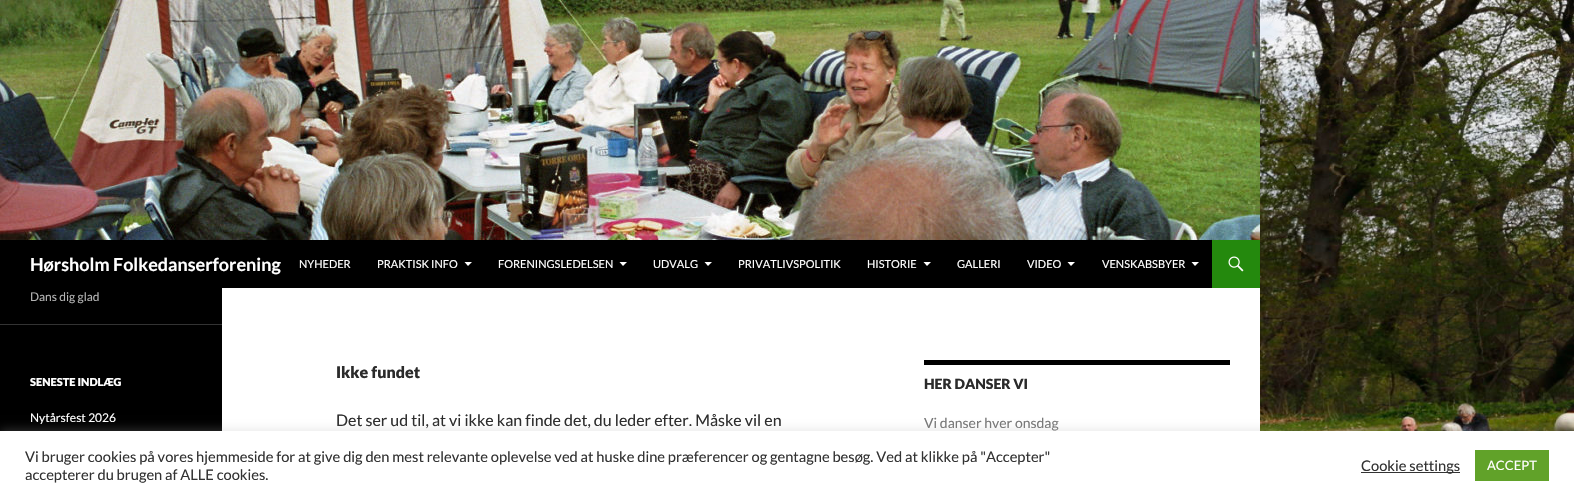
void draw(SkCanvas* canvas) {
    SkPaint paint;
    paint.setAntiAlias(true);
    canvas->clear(0xFFFFFFFF);
    canvas->drawImageRect(SkImages::DeferredFromEncodedData(SkData::MakeFromFileName("img1.png")), SkRect::MakeXYWH(1260, 0, 314, 431), SkSamplingOptions());
    canvas->drawImageRect(SkImages::DeferredFromEncodedData(SkData::MakeFromFileName("img2.png")), SkRect::MakeXYWH(0, 0, 1260, 240), SkSamplingOptions());
    paint.setColor(0xFF000000);
    canvas->drawRect(SkRect::MakeXYWH(0, 240, 1212, 48), paint);
    SkFont font1(fontMgr->matchFamilyStyle("Lato", SkFontStyle::Bold()), 18);
    font1.setSubpixel(true);
    paint.setColor(0xFFFFFFFF);
    canvas->drawString("Hørsholm Folkedanserforening", 30, 271, font1, paint);
    SkFont font2(fontMgr->matchFamilyStyle("Lato", SkFontStyle::Normal()), 11);
    font2.setSubpixel(true);
    canvas->drawString("NYHEDER", 299, 268, font2, paint);
    canvas->drawString("PRAKTISK INFO", 377, 268, font2, paint);
    canvas->drawPath(SkPathBuilder().moveTo(464.5f, 262).lineTo(468, 266).lineTo(472, 262).close().detach(), paint);
    canvas->drawString("FORENINGSLEDELSEN", 498, 268, font2, paint);
    canvas->drawPath(SkPathBuilder().moveTo(619.5f, 262).lineTo(623, 266).lineTo(627, 262).close().detach(), paint);
    canvas->drawString("UDVALG", 653, 268, font2, paint);
    canvas->drawPath(SkPathBuilder().moveTo(704.5f, 262).lineTo(708, 266).lineTo(712, 262).close().detach(), paint);
    canvas->drawString("PRIVATLIVSPOLITIK", 738, 268, font2, paint);
    canvas->drawString("HISTORIE", 867, 268, font2, paint);
    canvas->drawPath(SkPathBuilder().moveTo(923.5f, 262).lineTo(927, 266).lineTo(931, 262).close().detach(), paint);
    canvas->drawString("GALLERI", 957, 268, font2, paint);
    canvas->drawString("VIDEO", 1027, 268, font2, paint);
    canvas->drawPath(SkPathBuilder().moveTo(1067.5f, 262).lineTo(1071, 266).lineTo(1075, 262).close().detach(), paint);
    canvas->drawString("VENSKABSBYER", 1102, 268, font2, paint);
    canvas->drawPath(SkPathBuilder().moveTo(1191.5f, 262).lineTo(1195, 266).lineTo(1199, 262).close().detach(), paint);
    paint.setColor(0xFF24890D);
    canvas->drawRect(SkRect::MakeXYWH(1212, 240, 48, 48), paint);
    canvas->drawImageRect(SkImages::DeferredFromEncodedData(SkData::MakeFromFileName("img3.png")), SkRect::MakeXYWH(1228, 256, 16, 16), SkSamplingOptions());
    paint.setColor(0xFF000000);
    canvas->drawRect(SkRect::MakeXYWH(0, 288, 222, 143), paint);
    SkFont font3(fontMgr->matchFamilyStyle("Lato", SkFontStyle::Normal()), 12);
    font3.setSubpixel(true);
    paint.setColor(0xFFB3B3B3);
    canvas->drawString("Dans dig glad", 30, 301, font3, paint);
    paint.setColor(0xFF333333);
    canvas->drawRect(SkRect::MakeXYWH(0, 324, 222, 1), paint);
    SkFont font4(fontMgr->matchFamilyStyle("Lato", SkFontStyle(900, SkFontStyle::kNormal_Width, SkFontStyle::kUpright_Slant)), 11);
    font4.setSubpixel(true);
    paint.setColor(0xFFFFFFFF);
    canvas->drawString("SENESTE INDLÆG", 30, 386, font4, paint);
    canvas->drawString("Nytårsfest 2026", 30, 422, font3, paint);
    SkFont font5(fontMgr->matchFamilyStyle("Lato", SkFontStyle(900, SkFontStyle::kNormal_Width, SkFontStyle::kUpright_Slant)), 16);
    font5.setSubpixel(true);
    paint.setColor(0xFF2B2B2B);
    canvas->drawString("Ikke fundet", 336, 378, font5, paint);
    SkFont font6(fontMgr->matchFamilyStyle("Lato", SkFontStyle::Normal()), 16);
    font6.setSubpixel(true);
    canvas->drawString("Det ser ud til, at vi ikke kan finde det, du leder efter. Måske vil en", 336, 426, font6, paint);
    paint.setColor(0xFF000000);
    canvas->drawRect(SkRect::MakeXYWH(924, 360, 306, 5), paint);
    SkFont font7(fontMgr->matchFamilyStyle("Lato", SkFontStyle(900, SkFontStyle::kNormal_Width, SkFontStyle::kUpright_Slant)), 14);
    font7.setSubpixel(true);
    paint.setColor(0xFF2B2B2B);
    canvas->drawString("HER DANSER VI", 924, 389, font7, paint);
    SkFont font8(fontMgr->matchFamilyStyle("Lato", SkFontStyle::Normal()), 14);
    font8.setSubpixel(true);
    paint.setColor(0xFF767676);
    canvas->drawString("Vi danser hver onsdag", 924, 428, font8, paint);
    paint.setColor(0x4DACABAB);
    paint.setMaskFilter(SkMaskFilter::MakeBlur(kNormal_SkBlurStyle, 5));
    canvas->drawRect(SkRect::MakeXYWH(0, 430, 1574, 69), paint);
    paint.setMaskFilter(nullptr);
    paint.setColor(0xFFFFFFFF);
    canvas->drawRect(SkRect::MakeXYWH(0, 431, 1574, 69), paint);
    SkFont font9(fontMgr->matchFamilyStyle("Lato", SkFontStyle::Normal()), 14.67f);
    font9.setSubpixel(true);
    paint.setColor(0xFF333333);
    canvas->drawString("Vi bruger cookies på vores hjemmeside for at give dig den mest relevante oplevelse ved at huske dine præferencer og gentagne besøg. Ved at klikke på \"Accepter\"", 25, 462, font9, paint);
    canvas->drawString("accepterer du brugen af ALLE cookies.", 25, 480, font9, paint);
    canvas->drawRect(SkRect::MakeXYWH(1361, 472, 99, 1), paint);
    canvas->drawString("Cookie settings", 1361, 471, font9, paint);
    paint.setColor(0xFF61A229);
    canvas->drawRect(SkRect::MakeXYWH(1475, 450, 74, 31), paint);
    SkFont font10(fontMgr->matchFamilyStyle("Lato", SkFontStyle::Normal()), 13);
    font10.setSubpixel(true);
    paint.setColor(0xFFFFFFFF);
    canvas->drawString("ACCEPT", 1487, 470, font10, paint);
}
